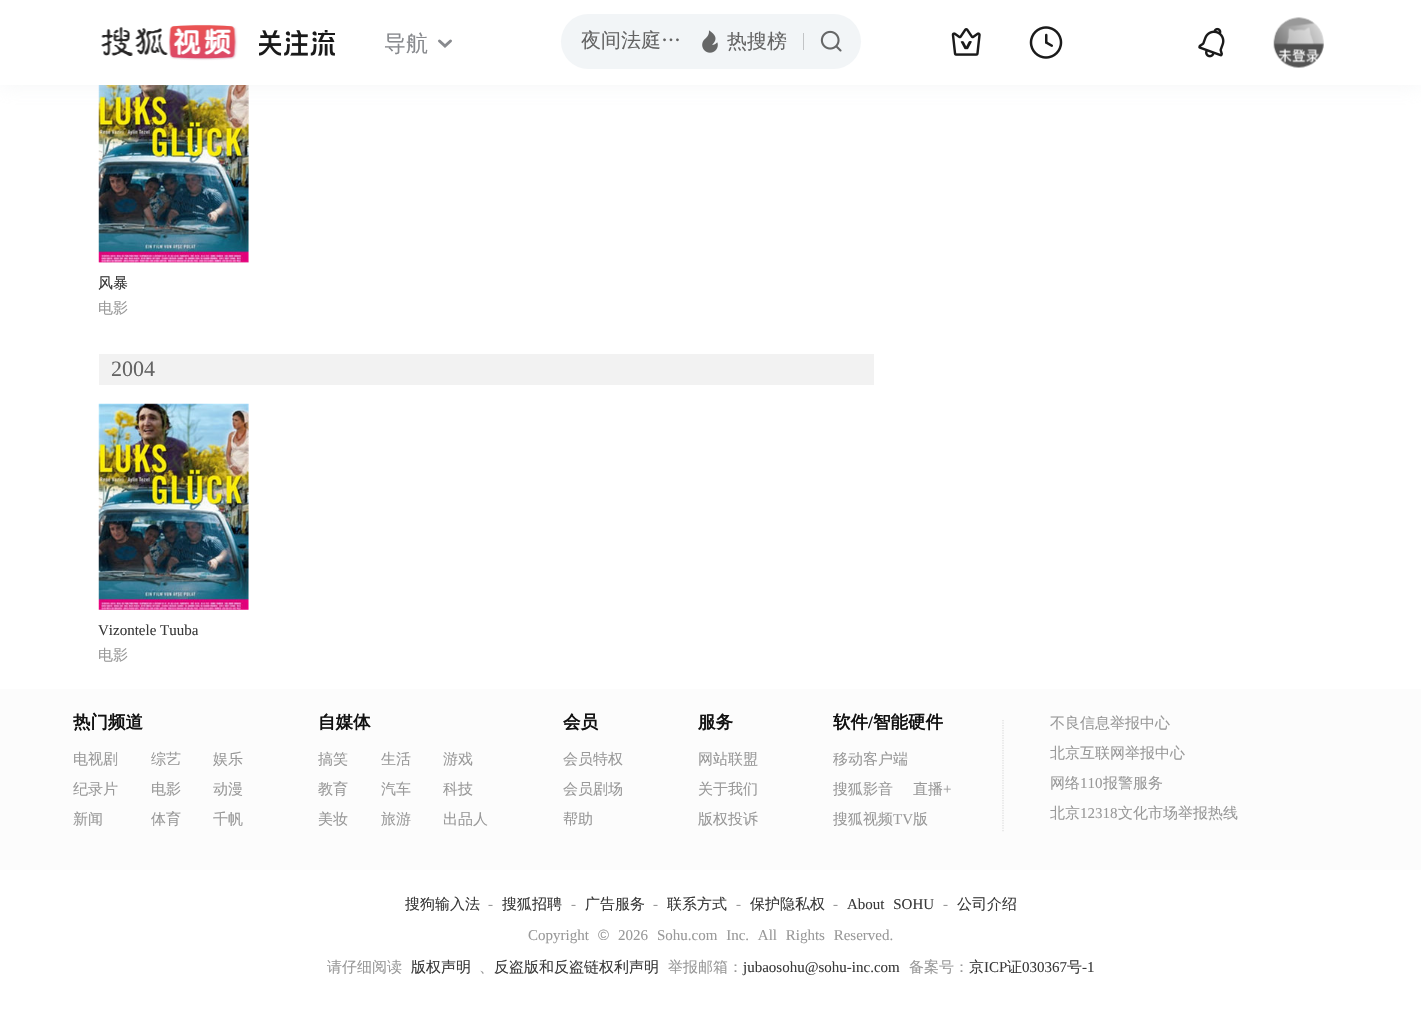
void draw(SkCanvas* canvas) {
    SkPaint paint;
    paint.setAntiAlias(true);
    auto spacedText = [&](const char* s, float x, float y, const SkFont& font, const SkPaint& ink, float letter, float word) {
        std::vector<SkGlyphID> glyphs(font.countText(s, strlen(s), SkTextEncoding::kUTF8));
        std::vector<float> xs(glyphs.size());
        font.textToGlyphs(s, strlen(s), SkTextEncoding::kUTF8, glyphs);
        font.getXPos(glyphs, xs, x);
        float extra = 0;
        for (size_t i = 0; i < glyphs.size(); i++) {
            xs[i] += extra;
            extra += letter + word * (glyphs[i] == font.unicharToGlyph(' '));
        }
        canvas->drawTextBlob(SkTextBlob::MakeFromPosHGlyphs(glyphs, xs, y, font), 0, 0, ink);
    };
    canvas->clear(0xFFFFFFFF);
    paint.setColor(0xFFF0F0F0);
    canvas->drawRect(SkRect::MakeXYWH(99, 85, 150, 178), paint);
    canvas->drawImageRect(SkImages::DeferredFromEncodedData(SkData::MakeFromFileName("img9.png")), SkRect::MakeXYWH(98, 85, 151, 178), SkSamplingOptions());
    paint.setColor(0x73E6E8EA);
    paint.setMaskFilter(SkMaskFilter::MakeBlur(kNormal_SkBlurStyle, 10));
    canvas->drawRect(SkRect::MakeXYWH(0, 0, 1421, 85), paint);
    paint.setMaskFilter(nullptr);
    paint.setColor(0xFFFFFFFF);
    canvas->drawRect(SkRect::MakeXYWH(0, 0, 1421, 85), paint);
    canvas->drawImageRect(SkImages::DeferredFromEncodedData(SkData::MakeFromFileName("img1.png")), SkRect::MakeXYWH(101, 24, 137, 37), SkSamplingOptions());
    canvas->drawImageRect(SkImages::DeferredFromEncodedData(SkData::MakeFromFileName("img2.png")), SkRect::MakeXYWH(259, 30, 76, 26), SkSamplingOptions());
    SkFont font1(fontMgr->matchFamilyStyle("WenQuanYi Zen Hei", SkFontStyle(500, SkFontStyle::kNormal_Width, SkFontStyle::kUpright_Slant)), 22);
    font1.setSubpixel(true);
    paint.setColor(0xFF888A8E);
    canvas->drawString("导航", 384, 51, font1, paint);
    paint.setStyle(SkPaint::kStroke_Style);
    paint.setStrokeWidth(3);
    paint.setStrokeCap(SkPaint::kRound_Cap);
    canvas->drawPath(SkPathBuilder().moveTo(439.5f, 41).lineTo(445, 46).lineTo(450.5f, 41).detach(), paint);
    paint.setStyle(SkPaint::kFill_Style);
    paint.setColor(0xFFF2F5F7);
    canvas->drawRoundRect(SkRect::MakeXYWH(561, 14, 300, 55), 27.5f, 27.5f, paint);
    SkFont font2(fontMgr->matchFamilyStyle("WenQuanYi Zen Hei", SkFontStyle(500, SkFontStyle::kNormal_Width, SkFontStyle::kUpright_Slant)), 20);
    font2.setSubpixel(true);
    paint.setColor(0xFF646464);
    canvas->drawString("夜间法庭…", 581, 47, font2, paint);
    canvas->drawImageRect(SkImages::DeferredFromEncodedData(SkData::MakeFromFileName("img3.png")), SkRect::MakeXYWH(702, 30, 16, 23), SkSamplingOptions());
    canvas->drawString("热搜榜", 727, 48, font2, paint);
    paint.setColor(0xFFC2C4C6);
    canvas->drawRect(SkRect::MakeXYWH(803, 33, 1, 17), paint);
    canvas->drawImageRect(SkImages::DeferredFromEncodedData(SkData::MakeFromFileName("img4.png")), SkRect::MakeXYWH(820, 30, 22, 22), SkSamplingOptions());
    canvas->drawImageRect(SkImages::DeferredFromEncodedData(SkData::MakeFromFileName("img5.png")), SkRect::MakeXYWH(951, 28, 30, 28), SkSamplingOptions());
    canvas->drawImageRect(SkImages::DeferredFromEncodedData(SkData::MakeFromFileName("img6.png")), SkRect::MakeXYWH(1029, 26, 34, 33), SkSamplingOptions());
    canvas->drawImageRect(SkImages::DeferredFromEncodedData(SkData::MakeFromFileName("img7.png")), SkRect::MakeXYWH(1198, 27, 27, 31), SkSamplingOptions());
    canvas->drawImageRect(SkImages::DeferredFromEncodedData(SkData::MakeFromFileName("img8.png")), SkRect::MakeXYWH(1273, 17, 51, 51), SkSamplingOptions());
    SkFont font3(fontMgr->matchFamilyStyle("WenQuanYi Zen Hei", SkFontStyle(500, SkFontStyle::kNormal_Width, SkFontStyle::kUpright_Slant)), 15);
    font3.setSubpixel(true);
    paint.setColor(0xFF3A3A3A);
    canvas->drawString("风暴", 98, 288, font3, paint);
    paint.setColor(0xFF999999);
    canvas->drawString("电影", 98, 313, font3, paint);
    paint.setColor(0xFFF2F2F2);
    canvas->drawRect(SkRect::MakeXYWH(99, 354, 775, 31), paint);
    SkFont font4(fontMgr->matchFamilyStyle("Liberation Serif", SkFontStyle::Normal()), 22);
    font4.setSubpixel(true);
    paint.setColor(0xFF646464);
    canvas->drawString("2004", 111, 376, font4, paint);
    canvas->drawImageRect(SkImages::DeferredFromEncodedData(SkData::MakeFromFileName("img10.png")), SkRect::MakeXYWH(98, 403, 151, 207), SkSamplingOptions());
    SkFont font5(fontMgr->matchFamilyStyle("Liberation Serif", SkFontStyle::Normal()), 15);
    font5.setSubpixel(true);
    paint.setColor(0xFF3A3A3A);
    canvas->drawString("Vizontele Tuuba", 98, 635, font5, paint);
    paint.setColor(0xFF999999);
    canvas->drawString("电影", 98, 660, font3, paint);
    paint.setColor(0xFFFCFCFC);
    canvas->drawRect(SkRect::MakeXYWH(0, 689, 1421, 181), paint);
    SkFont font6(fontMgr->matchFamilyStyle("WenQuanYi Zen Hei", SkFontStyle::Bold()), 17.5f);
    font6.setSubpixel(true);
    paint.setColor(0xFF111111);
    canvas->drawString("热门频道", 73, 728, font6, paint);
    paint.setColor(0xFF999999);
    canvas->drawString("电视剧", 73, 764, font3, paint);
    canvas->drawString("纪录片", 73, 794, font3, paint);
    canvas->drawString("新闻", 73, 824, font3, paint);
    canvas->drawString("综艺", 151, 764, font3, paint);
    canvas->drawString("电影", 151, 794, font3, paint);
    canvas->drawString("体育", 151, 824, font3, paint);
    canvas->drawString("娱乐", 213, 764, font3, paint);
    canvas->drawString("动漫", 213, 794, font3, paint);
    canvas->drawString("千帆", 213, 824, font3, paint);
    paint.setColor(0xFF111111);
    canvas->drawString("自媒体", 318, 728, font6, paint);
    paint.setColor(0xFF999999);
    canvas->drawString("搞笑", 318, 764, font3, paint);
    canvas->drawString("教育", 318, 794, font3, paint);
    canvas->drawString("美妆", 318, 824, font3, paint);
    canvas->drawString("生活", 381, 764, font3, paint);
    canvas->drawString("汽车", 381, 794, font3, paint);
    canvas->drawString("旅游", 381, 824, font3, paint);
    canvas->drawString("游戏", 443, 764, font3, paint);
    canvas->drawString("科技", 443, 794, font3, paint);
    canvas->drawString("出品人", 443, 824, font3, paint);
    paint.setColor(0xFF111111);
    canvas->drawString("会员", 563, 728, font6, paint);
    paint.setColor(0xFF999999);
    canvas->drawString("会员特权", 563, 764, font3, paint);
    canvas->drawString("会员剧场", 563, 794, font3, paint);
    canvas->drawString("帮助", 563, 824, font3, paint);
    paint.setColor(0xFF111111);
    canvas->drawString("服务", 698, 728, font6, paint);
    paint.setColor(0xFF999999);
    canvas->drawString("网站联盟", 698, 764, font3, paint);
    canvas->drawString("关于我们", 698, 794, font3, paint);
    canvas->drawString("版权投诉", 698, 824, font3, paint);
    paint.setColor(0xFF111111);
    canvas->drawString("软件", 833, 728, font6, paint);
    SkFont font7(fontMgr->matchFamilyStyle("Liberation Serif", SkFontStyle::Bold()), 17.5f);
    font7.setSubpixel(true);
    canvas->drawString("/", 868, 728, font7, paint);
    canvas->drawString("智能硬件", 873, 728, font6, paint);
    paint.setColor(0xFF999999);
    canvas->drawString("移动客户端", 833, 764, font3, paint);
    canvas->drawString("搜狐影音", 833, 794, font3, paint);
    canvas->drawString("直播", 913, 794, font3, paint);
    canvas->drawString("+", 943, 794, font5, paint);
    canvas->drawString("搜狐视频", 833, 824, font3, paint);
    canvas->drawString("TV", 893, 824, font5, paint);
    canvas->drawString("版", 913, 824, font3, paint);
    paint.setStyle(SkPaint::kStroke_Style);
    paint.setStrokeWidth(1.2f);
    paint.setStrokeCap(SkPaint::kButt_Cap);
    paint.setColor(0xFFDDDDDD);
    paint.setPathEffect(SkDashPathEffect::Make({{1.25f, 1.25f}}, 0));
    canvas->drawPath(SkPathBuilder().moveTo(1003, 720).lineTo(1003, 832.5f).detach(), paint);
    paint.setPathEffect(nullptr);
    paint.setStyle(SkPaint::kFill_Style);
    paint.setColor(0xFF999999);
    canvas->drawString("不良信息举报中心", 1050, 728, font3, paint);
    canvas->drawString("北京互联网举报中心", 1050, 758, font3, paint);
    canvas->drawString("网络", 1050, 788, font3, paint);
    canvas->drawString("110", 1080, 788, font5, paint);
    canvas->drawString("报警服务", 1103, 788, font3, paint);
    canvas->drawString("北京", 1050, 818, font3, paint);
    canvas->drawString("12318", 1080, 818, font5, paint);
    canvas->drawString("文化市场举报热线", 1118, 818, font3, paint);
    paint.setColor(0xFF3A3A3A);
    canvas->drawString("搜狗输入法", 405, 909, font3, paint);
    paint.setColor(0xFF999999);
    canvas->drawString("-", 488, 909, font5, paint);
    paint.setColor(0xFF3A3A3A);
    canvas->drawString("搜狐招聘", 502, 909, font3, paint);
    paint.setColor(0xFF999999);
    canvas->drawString("-", 571, 909, font5, paint);
    paint.setColor(0xFF3A3A3A);
    canvas->drawString("广告服务", 585, 909, font3, paint);
    paint.setColor(0xFF999999);
    canvas->drawString("-", 653, 909, font5, paint);
    paint.setColor(0xFF3A3A3A);
    canvas->drawString("联系方式", 667, 909, font3, paint);
    paint.setColor(0xFF999999);
    canvas->drawString("-", 736, 909, font5, paint);
    paint.setColor(0xFF3A3A3A);
    canvas->drawString("保护隐私权", 750, 909, font3, paint);
    paint.setColor(0xFF999999);
    canvas->drawString("-", 833, 909, font5, paint);
    paint.setColor(0xFF3A3A3A);
    spacedText("About SOHU", 847, 909, font5, paint, 0, 5);
    paint.setColor(0xFF999999);
    canvas->drawString("-", 943, 909, font5, paint);
    paint.setColor(0xFF3A3A3A);
    canvas->drawString("公司介绍", 957, 909, font3, paint);
    paint.setColor(0xFF999999);
    canvas->drawString("Copyright", 528, 940, font5, paint);
    SkFont font8(fontMgr->matchFamilyStyle("Liberation Sans", SkFontStyle::Normal()), 15);
    font8.setSubpixel(true);
    canvas->drawString("©", 598, 940, font8, paint);
    canvas->drawString("2026", 618, 940, font5, paint);
    spacedText("Sohu.com Inc. All Rights Reserved.", 657, 940, font5, paint, 0, 5);
    canvas->drawString("请仔细阅读", 327, 972, font3, paint);
    paint.setColor(0xFF3A3A3A);
    canvas->drawString("版权声明", 411, 972, font3, paint);
    paint.setColor(0xFF999999);
    canvas->drawString("、", 479, 972, font3, paint);
    paint.setColor(0xFF3A3A3A);
    canvas->drawString("反盗版和反盗链权利声明", 494, 972, font3, paint);
    paint.setColor(0xFF999999);
    canvas->drawString("举报邮箱：", 668, 972, font3, paint);
    paint.setColor(0xFF3A3A3A);
    canvas->drawString("jubaosohu@sohu-inc.com", 743, 972, font5, paint);
    paint.setColor(0xFF999999);
    canvas->drawString("备案号：", 909, 972, font3, paint);
    paint.setColor(0xFF3A3A3A);
    canvas->drawString("京", 969, 972, font3, paint);
    canvas->drawString("ICP", 984, 972, font5, paint);
    canvas->drawString("证", 1007, 972, font3, paint);
    canvas->drawString("030367", 1022, 972, font5, paint);
    canvas->drawString("号", 1067, 972, font3, paint);
    canvas->drawString("-1", 1082, 972, font5, paint);
}
